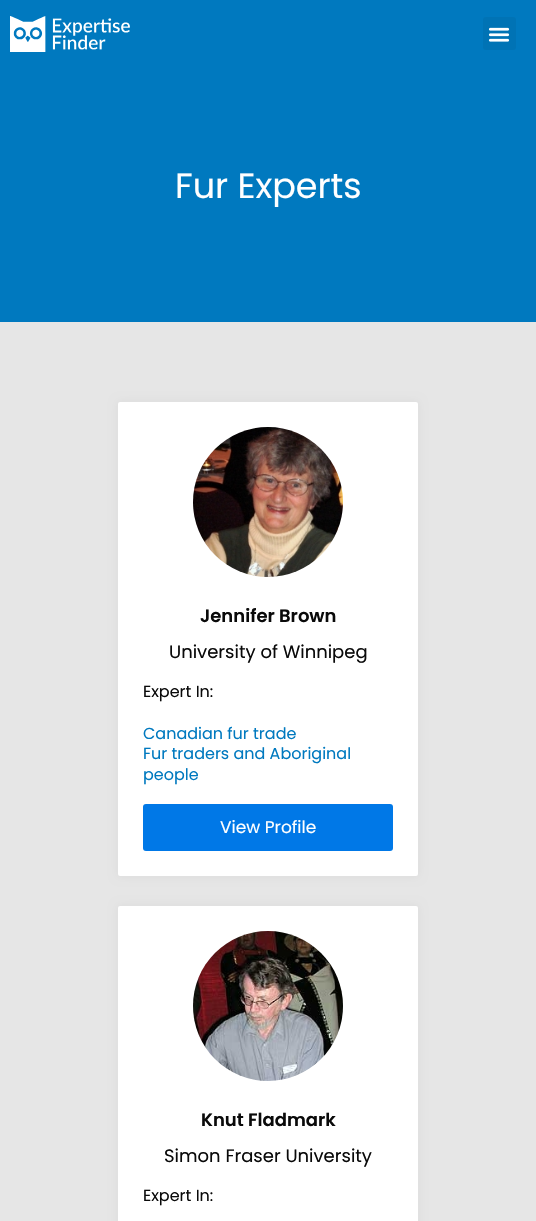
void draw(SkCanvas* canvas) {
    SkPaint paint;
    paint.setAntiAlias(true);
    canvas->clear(0xFF0079BF);
    canvas->drawImageRect(SkImages::DeferredFromEncodedData(SkData::MakeFromFileName("img1.png")), SkRect::MakeXYWH(10, 16, 120, 36), SkSamplingOptions());
    paint.setColor(0xFF0073B5);
    canvas->drawRoundRect(SkRect::MakeXYWH(483, 17, 33, 33), 3, 3, paint);
    canvas->drawImageRect(SkImages::DeferredFromEncodedData(SkData::MakeFromFileName("img2.png")), SkRect::MakeXYWH(488, 27, 22, 15), SkSamplingOptions());
    SkFont font1(fontMgr->matchFamilyStyle("Poppins", SkFontStyle::Normal()), 35);
    font1.setSubpixel(true);
    paint.setColor(0xFFFFFFFF);
    canvas->drawString("Fur Experts", 175, 198, font1, paint);
    paint.setColor(0xFFE6E6E6);
    canvas->drawRect(SkRect::MakeXYWH(0, 322, 536, 899), paint);
    paint.setColor(0x0D000000);
    paint.setMaskFilter(SkMaskFilter::MakeBlur(kNormal_SkBlurStyle, 5));
    canvas->drawRoundRect(SkRect::MakeXYWH(118, 402, 300, 474), 2, 2, paint);
    paint.setMaskFilter(nullptr);
    paint.setColor(0xFFFFFFFF);
    canvas->drawRoundRect(SkRect::MakeXYWH(118, 402, 300, 474), 2, 2, paint);
    canvas->drawImageRect(SkImages::DeferredFromEncodedData(SkData::MakeFromFileName("img3.png")), SkRect::MakeXYWH(193, 427, 150, 150), SkSamplingOptions());
    SkFont font2(fontMgr->matchFamilyStyle("Poppins", SkFontStyle(600, SkFontStyle::kNormal_Width, SkFontStyle::kUpright_Slant)), 18);
    font2.setSubpixel(true);
    paint.setColor(0xFF0A0A0A);
    canvas->drawString("Jennifer Brown", 200, 622, font2, paint);
    SkFont font3(fontMgr->matchFamilyStyle("Poppins", SkFontStyle::Normal()), 18);
    font3.setSubpixel(true);
    canvas->drawString("University of Winnipeg", 169, 658, font3, paint);
    SkFont font4(fontMgr->matchFamilyStyle("Poppins", SkFontStyle::Normal()), 16);
    font4.setSubpixel(true);
    canvas->drawString("Expert In:", 143, 697, font4, paint);
    paint.setColor(0xFF0079BF);
    canvas->drawString("Canadian fur trade", 143, 739, font4, paint);
    canvas->drawString("Fur traders and Aboriginal", 143, 759, font4, paint);
    canvas->drawString("people", 143, 780, font4, paint);
    paint.setColor(0xFF0078E7);
    canvas->drawRoundRect(SkRect::MakeXYWH(143, 804, 250, 47), 3, 3, paint);
    SkFont font5(fontMgr->matchFamilyStyle("Poppins", SkFontStyle::Normal()), 17);
    font5.setSubpixel(true);
    paint.setColor(0xFFFFFFFF);
    canvas->drawString("View Profile", 220, 833, font5, paint);
    paint.setColor(0x0D000000);
    paint.setMaskFilter(SkMaskFilter::MakeBlur(kNormal_SkBlurStyle, 5));
    canvas->drawRoundRect(SkRect::MakeXYWH(118, 906, 300, 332), 2, 2, paint);
    paint.setMaskFilter(nullptr);
    paint.setColor(0xFFFFFFFF);
    canvas->drawRoundRect(SkRect::MakeXYWH(118, 906, 300, 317), 2, 2, paint);
    canvas->drawImageRect(SkImages::DeferredFromEncodedData(SkData::MakeFromFileName("img4.png")), SkRect::MakeXYWH(193, 931, 150, 150), SkSamplingOptions());
    paint.setColor(0xFF0A0A0A);
    canvas->drawString("Knut Fladmark", 201, 1126, font2, paint);
    canvas->drawString("Simon Fraser University", 164, 1162, font3, paint);
    canvas->drawString("Expert In:", 143, 1201, font4, paint);
}
